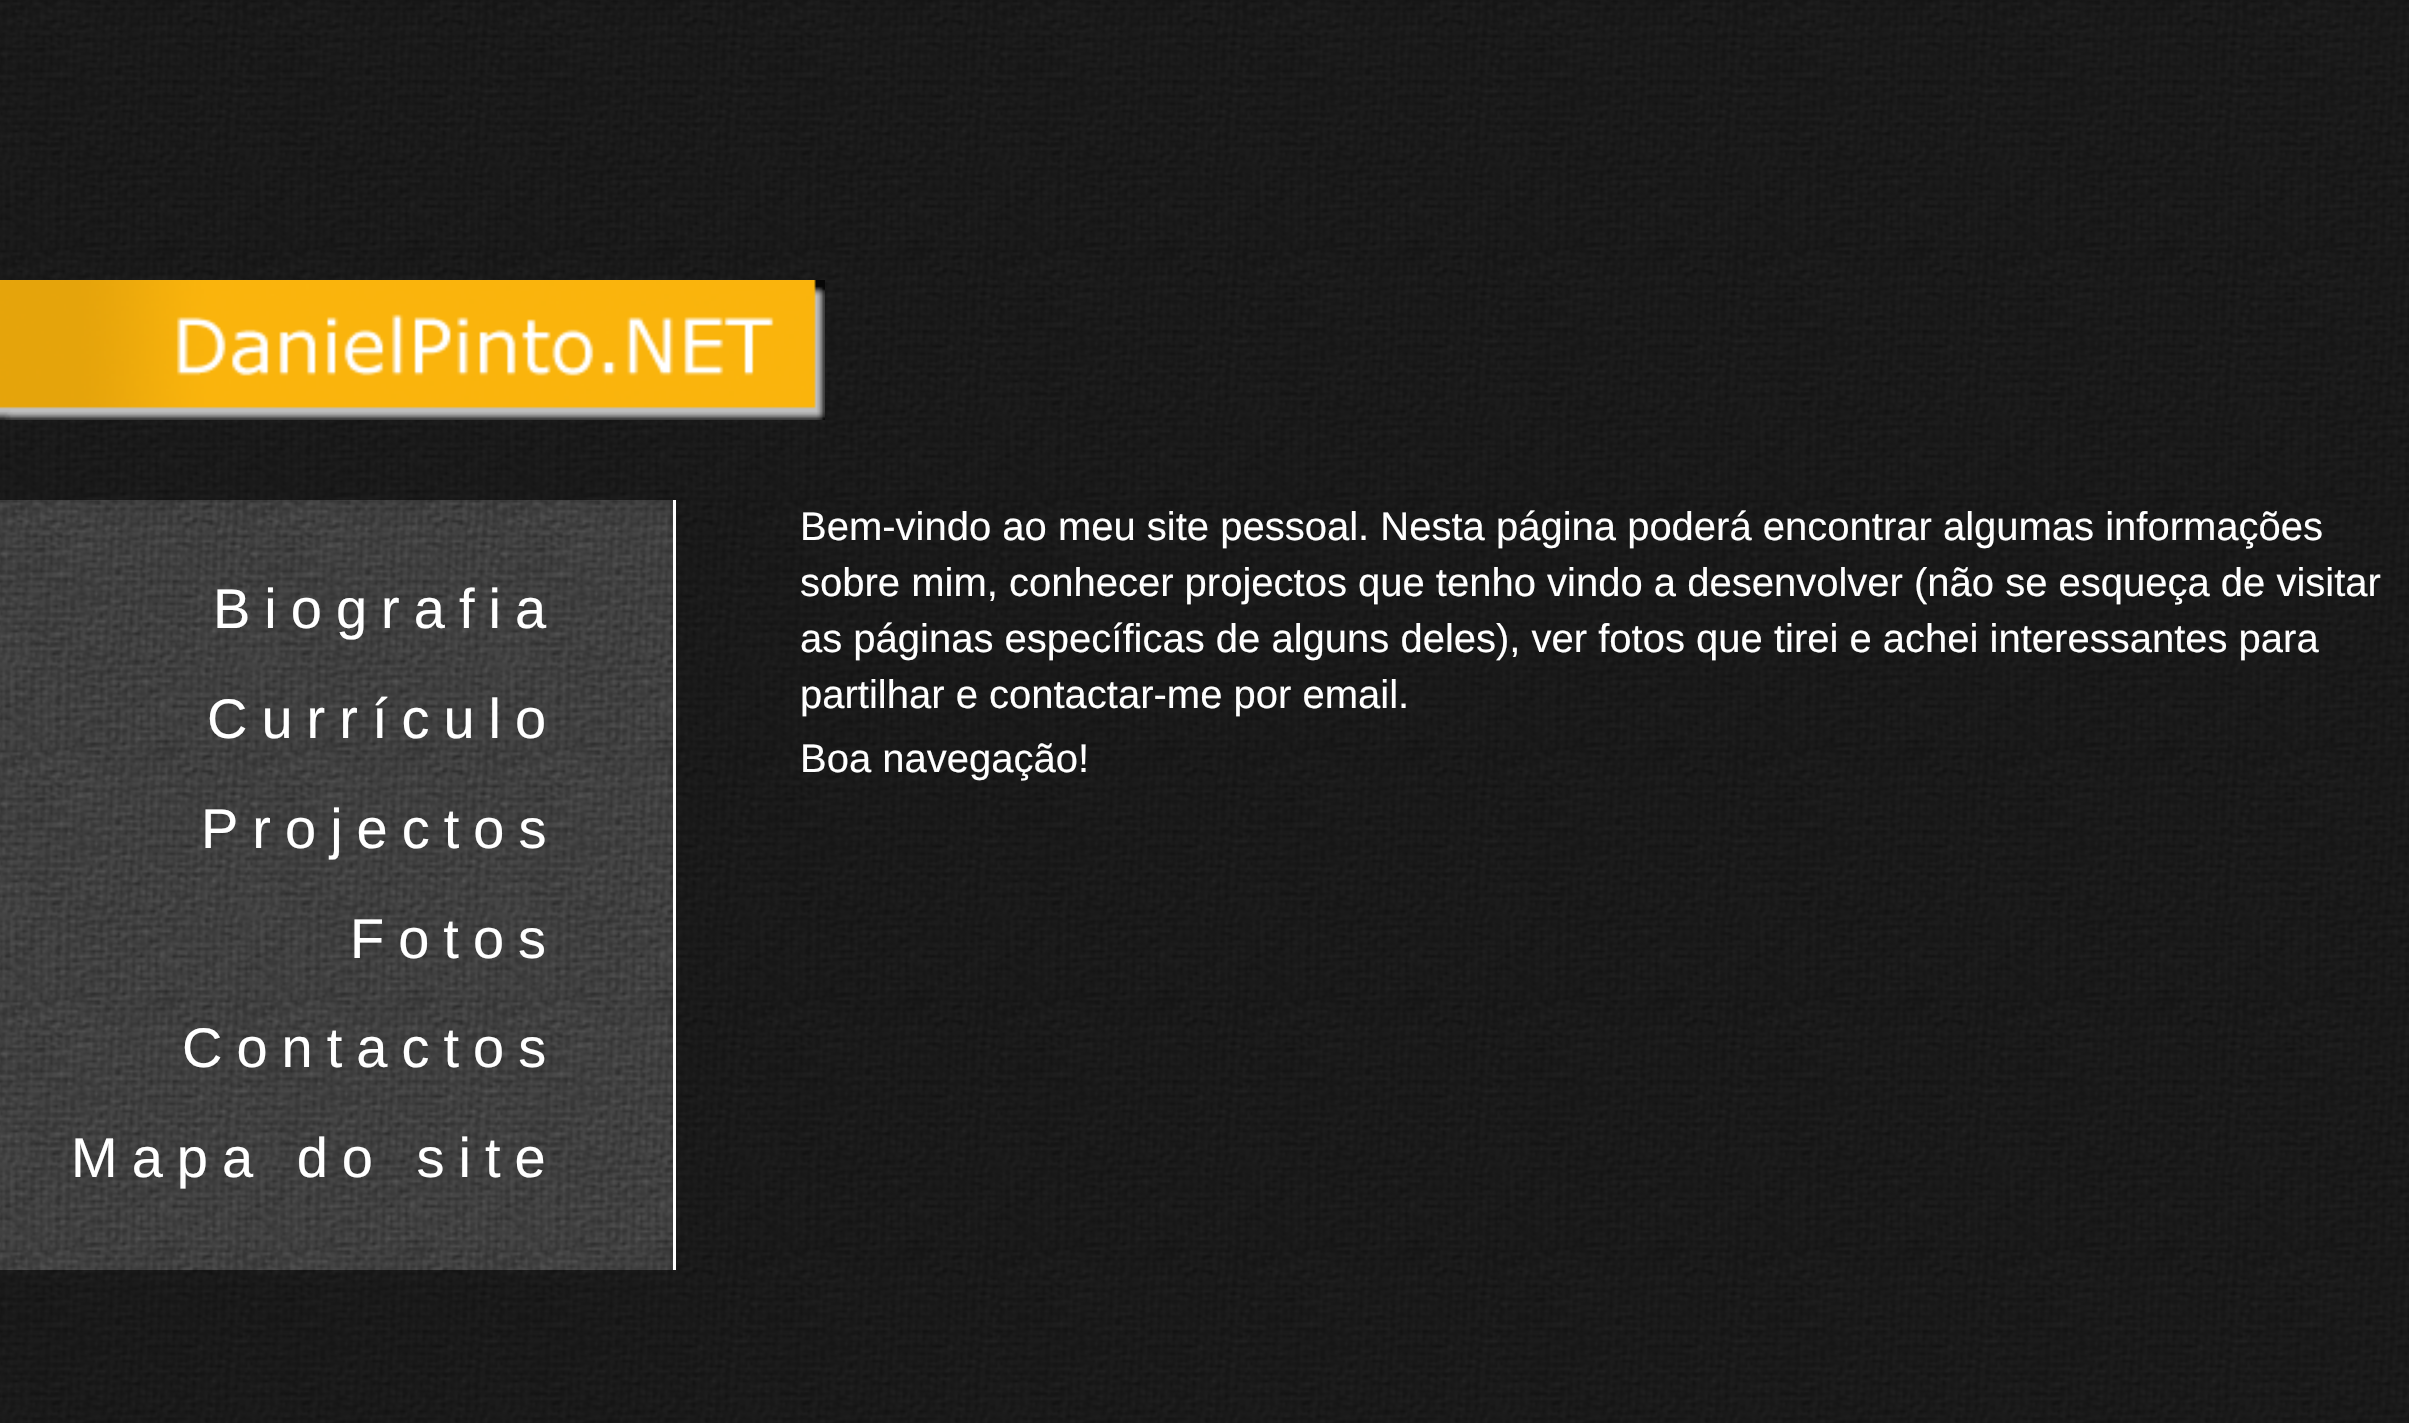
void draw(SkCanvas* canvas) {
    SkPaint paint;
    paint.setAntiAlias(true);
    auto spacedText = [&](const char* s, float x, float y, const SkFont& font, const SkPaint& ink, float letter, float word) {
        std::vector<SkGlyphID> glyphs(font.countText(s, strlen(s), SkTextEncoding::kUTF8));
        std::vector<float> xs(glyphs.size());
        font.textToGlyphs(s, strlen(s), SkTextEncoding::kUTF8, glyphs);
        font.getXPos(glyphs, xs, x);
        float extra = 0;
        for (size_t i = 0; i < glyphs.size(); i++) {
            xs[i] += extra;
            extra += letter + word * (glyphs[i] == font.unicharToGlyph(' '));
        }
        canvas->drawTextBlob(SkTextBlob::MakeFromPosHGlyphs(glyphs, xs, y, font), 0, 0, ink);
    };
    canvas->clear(0xFFFFFFFF);
    canvas->drawImageRect(SkImages::DeferredFromEncodedData(SkData::MakeFromFileName("img1.png")), SkRect::MakeXYWH(0, 0, 2409, 1423), SkSamplingOptions());
    canvas->drawImageRect(SkImages::DeferredFromEncodedData(SkData::MakeFromFileName("img2.png")), SkRect::MakeXYWH(0, 280, 825, 140), SkSamplingOptions());
    canvas->drawImageRect(SkImages::DeferredFromEncodedData(SkData::MakeFromFileName("img3.png")), SkRect::MakeXYWH(0, 500, 673, 770), SkSamplingOptions());
    paint.setColor(0xFFFFFFFF);
    canvas->drawRect(SkRect::MakeXYWH(673, 500, 3, 770), paint);
    SkFont font1(fontMgr->matchFamilyStyle("Liberation Sans", SkFontStyle::Normal()), 56);
    font1.setSubpixel(true);
    spacedText("Biografia", 213, 628, font1, paint, 14, 0);
    spacedText("Currículo", 207, 738, font1, paint, 14, 0);
    spacedText("Projectos", 201, 848, font1, paint, 14, 0);
    spacedText("Fotos", 350, 958, font1, paint, 14, 0);
    spacedText("Contactos", 182, 1067, font1, paint, 14, 0);
    spacedText("Mapa do site", 71, 1177, font1, paint, 14, 0);
    SkFont font2(fontMgr->matchFamilyStyle("Liberation Sans", SkFontStyle::Normal()), 40);
    font2.setSubpixel(true);
    canvas->drawString("Bem-vindo ao meu site pessoal. Nesta página poderá encontrar algumas informações", 800, 540, font2, paint);
    canvas->drawString("sobre mim, conhecer projectos que tenho vindo a desenvolver (não se esqueça de visitar", 800, 596, font2, paint);
    canvas->drawString("as páginas específicas de alguns deles), ver fotos que tirei e achei interessantes para", 800, 652, font2, paint);
    canvas->drawString("partilhar e contactar-me por email.", 800, 708, font2, paint);
    canvas->drawString("Boa navegação!", 800, 772, font2, paint);
}
